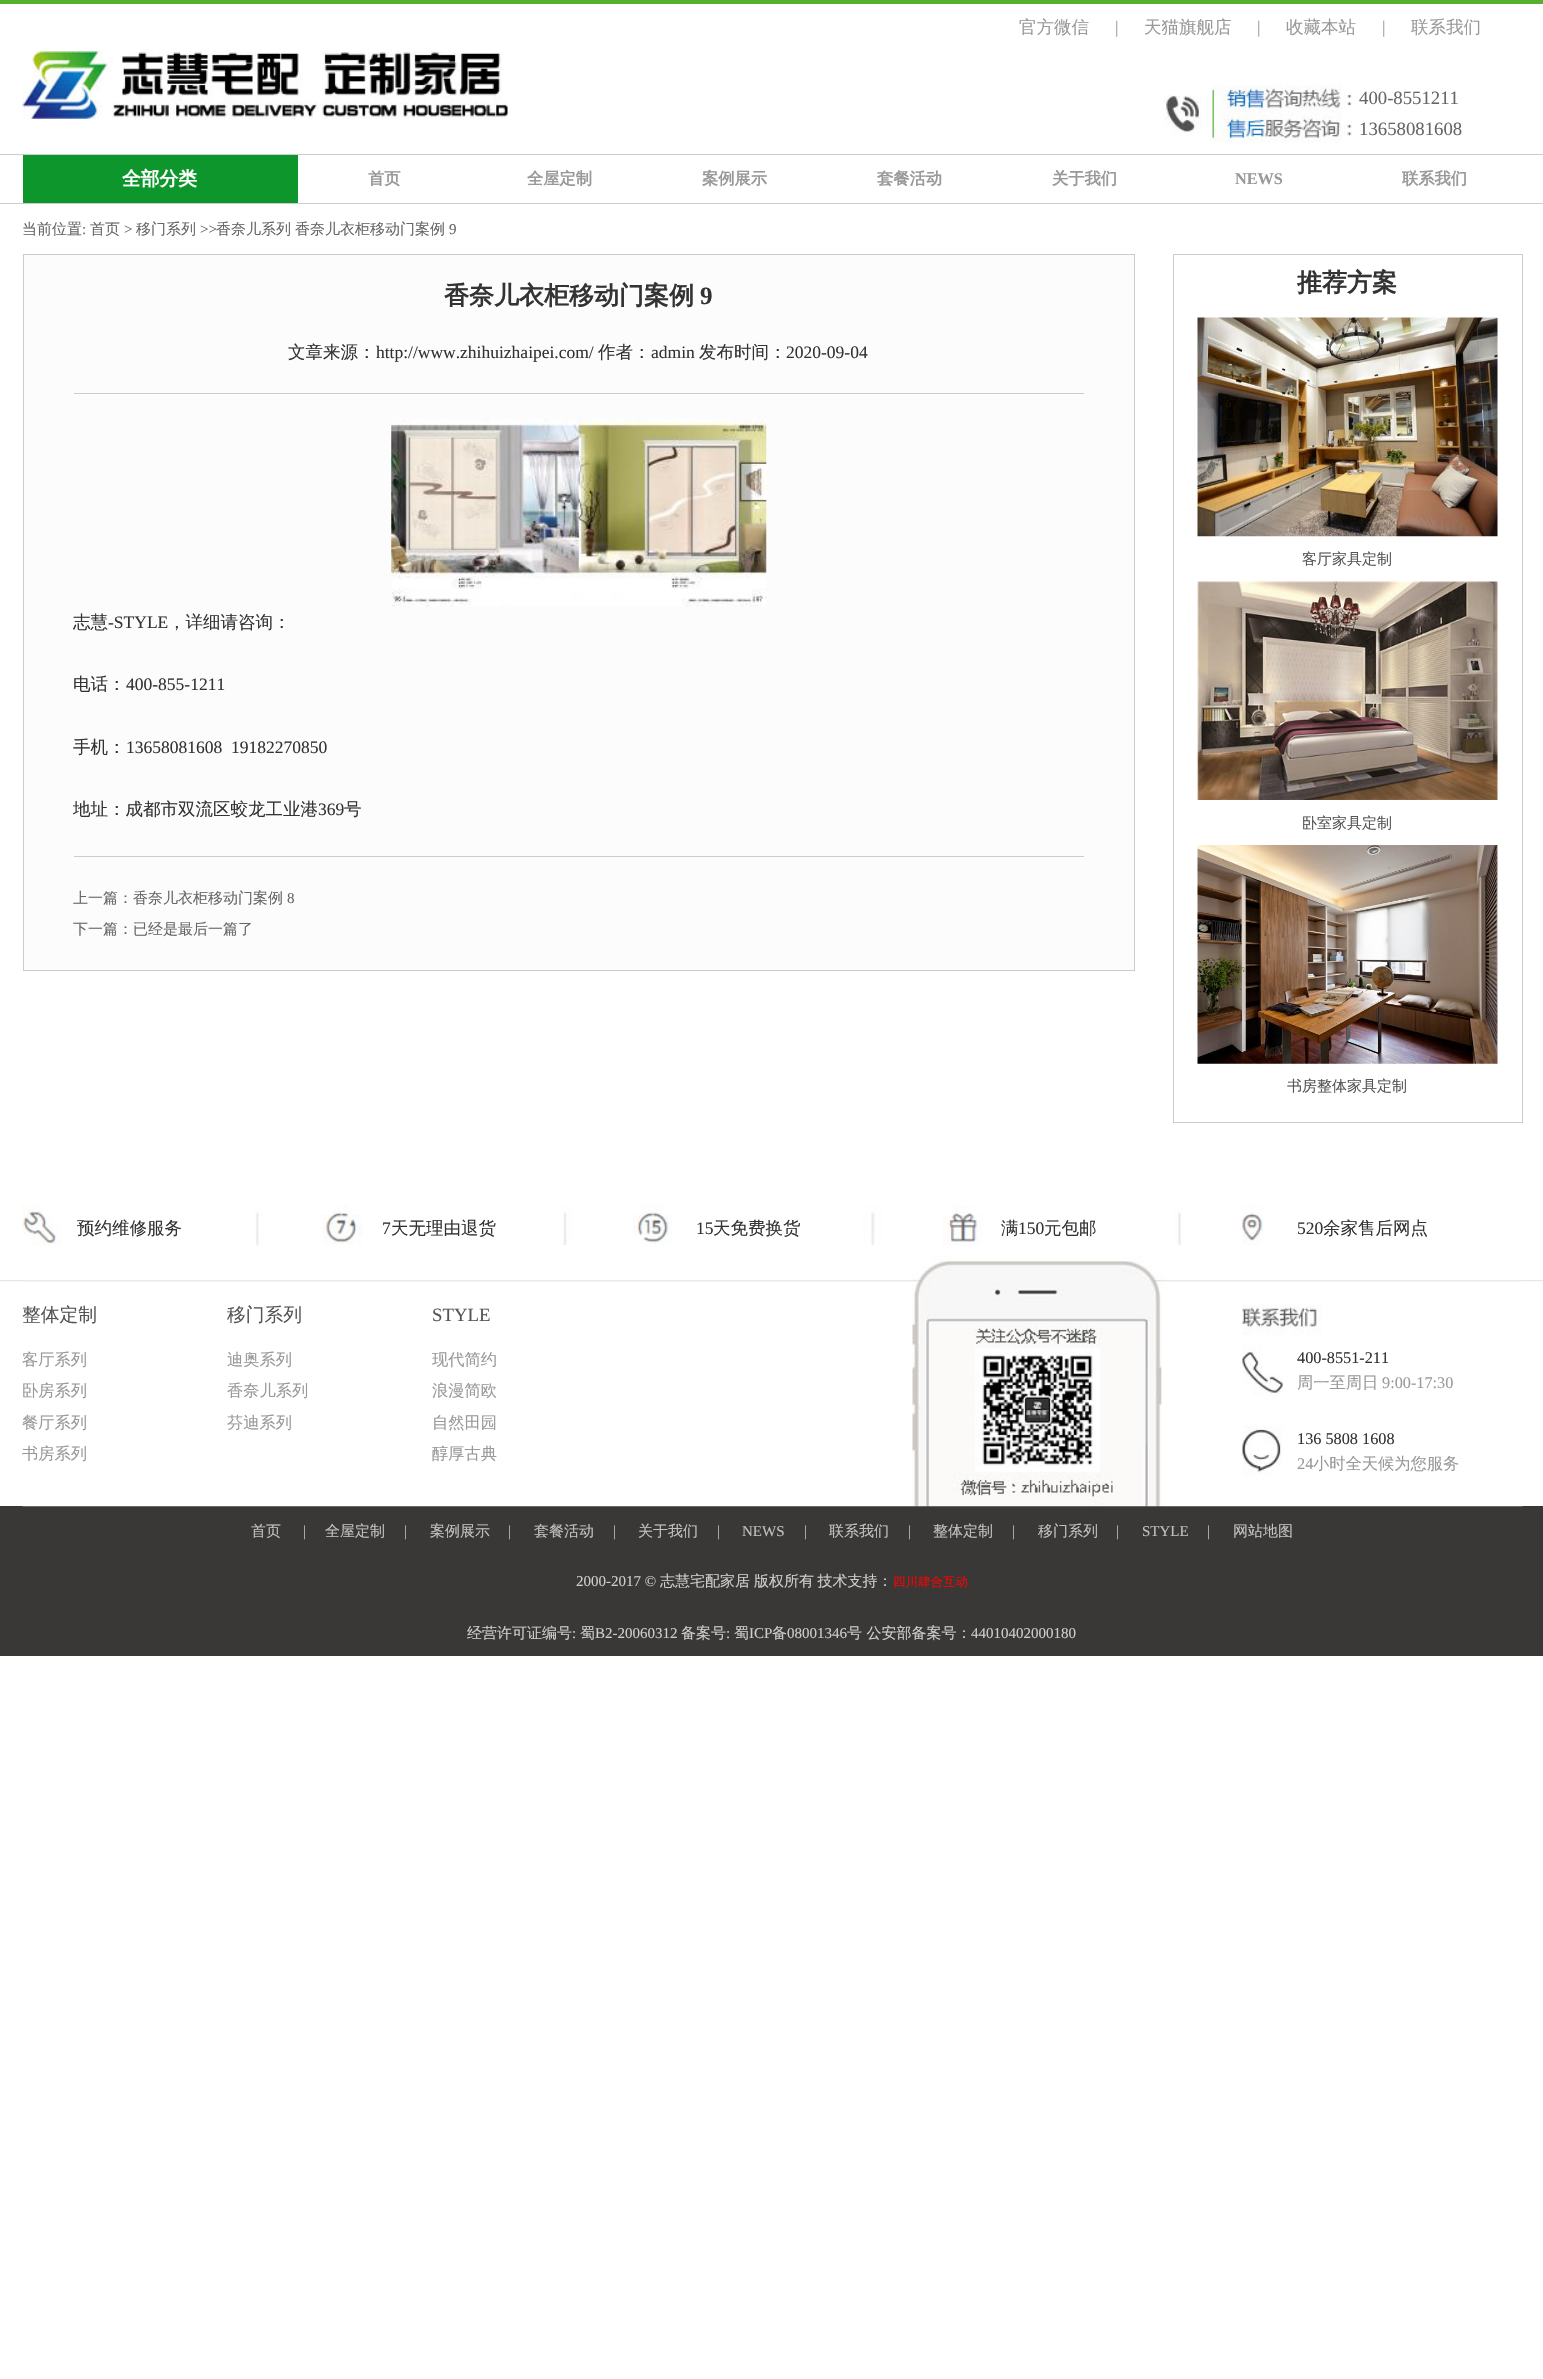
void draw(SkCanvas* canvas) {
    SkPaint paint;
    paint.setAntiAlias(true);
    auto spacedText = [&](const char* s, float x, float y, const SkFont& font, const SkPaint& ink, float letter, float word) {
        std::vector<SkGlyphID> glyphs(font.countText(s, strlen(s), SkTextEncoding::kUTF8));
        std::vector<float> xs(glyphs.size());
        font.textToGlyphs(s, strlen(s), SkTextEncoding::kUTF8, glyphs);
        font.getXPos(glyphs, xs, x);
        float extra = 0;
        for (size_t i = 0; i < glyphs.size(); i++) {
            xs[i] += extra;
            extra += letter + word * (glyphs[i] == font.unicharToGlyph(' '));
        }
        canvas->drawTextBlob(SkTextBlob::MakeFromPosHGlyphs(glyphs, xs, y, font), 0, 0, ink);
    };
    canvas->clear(0xFFFFFFFF);
    paint.setColor(0xFF54B130);
    canvas->drawRect(SkRect::MakeXYWH(0, 0, 1543, 4), paint);
    canvas->drawImageRect(SkImages::DeferredFromEncodedData(SkData::MakeFromFileName("img1.png")), SkRect::MakeXYWH(22, 51, 486, 68), SkSamplingOptions());
    SkFont font1(fontMgr->matchFamilyStyle("WenQuanYi Zen Hei", SkFontStyle(500, SkFontStyle::kNormal_Width, SkFontStyle::kUpright_Slant)), 17.5f);
    font1.setSubpixel(true);
    paint.setColor(0xFF999999);
    canvas->drawString("官方微信", 1019, 33, font1, paint);
    SkFont font2(fontMgr->matchFamilyStyle("Liberation Serif", SkFontStyle::Normal()), 17.5f);
    font2.setSubpixel(true);
    canvas->drawString("|", 1115, 33, font2, paint);
    canvas->drawString("天猫旗舰店", 1144, 33, font1, paint);
    canvas->drawString("|", 1257, 33, font2, paint);
    canvas->drawString("收藏本站", 1286, 33, font1, paint);
    canvas->drawString("|", 1382, 33, font2, paint);
    canvas->drawString("联系我们", 1411, 33, font1, paint);
    canvas->drawImageRect(SkImages::DeferredFromEncodedData(SkData::MakeFromFileName("img2.png")), SkRect::MakeXYWH(1163, 85, 189, 58), SkSamplingOptions());
    SkFont font3(fontMgr->matchFamilyStyle("Liberation Serif", SkFontStyle::Normal()), 18.75f);
    font3.setSubpixel(true);
    paint.setColor(0xFF666666);
    canvas->drawString("400-8551211", 1359, 104, font3, paint);
    canvas->drawString("13658081608", 1359, 135, font3, paint);
    paint.setColor(0xFFCCCCCC);
    canvas->drawRect(SkRect::MakeXYWH(0, 154, 1543, 1), paint);
    canvas->drawRect(SkRect::MakeXYWH(0, 203, 1543, 1), paint);
    paint.setColor(0xFF0D962C);
    canvas->drawRect(SkRect::MakeXYWH(23, 155, 275, 48), paint);
    SkFont font4(fontMgr->matchFamilyStyle("WenQuanYi Zen Hei", SkFontStyle::Bold()), 18.75f);
    font4.setSubpixel(true);
    paint.setColor(0xFFFFFFFF);
    canvas->drawString("全部分类", 122, 185, font4, paint);
    SkFont font5(fontMgr->matchFamilyStyle("WenQuanYi Zen Hei", SkFontStyle::Bold()), 16.25f);
    font5.setSubpixel(true);
    paint.setColor(0xFF999999);
    canvas->drawString("首页", 368, 184, font5, paint);
    canvas->drawString("全屋定制", 527, 184, font5, paint);
    canvas->drawString("案例展示", 702, 184, font5, paint);
    canvas->drawString("套餐活动", 877, 184, font5, paint);
    canvas->drawString("关于我们", 1052, 184, font5, paint);
    SkFont font6(fontMgr->matchFamilyStyle("Liberation Serif", SkFontStyle::Bold()), 16.25f);
    font6.setSubpixel(true);
    canvas->drawString("NEWS", 1235, 184, font6, paint);
    canvas->drawString("联系我们", 1402, 184, font5, paint);
    SkFont font7(fontMgr->matchFamilyStyle("WenQuanYi Zen Hei", SkFontStyle(500, SkFontStyle::kNormal_Width, SkFontStyle::kUpright_Slant)), 15);
    font7.setSubpixel(true);
    paint.setColor(0xFF666666);
    canvas->drawString("当前位置", 22, 234, font7, paint);
    SkFont font8(fontMgr->matchFamilyStyle("Liberation Serif", SkFontStyle::Normal()), 15);
    font8.setSubpixel(true);
    canvas->drawString(":", 82, 234, font8, paint);
    canvas->drawString("首页", 90, 234, font7, paint);
    canvas->drawString(">", 124, 234, font8, paint);
    canvas->drawString("移门系列", 136, 234, font7, paint);
    canvas->drawString(">>", 200, 234, font8, paint);
    canvas->drawString("香奈儿系列", 216, 234, font7, paint);
    canvas->drawString("香奈儿衣柜移动门案例", 295, 234, font7, paint);
    canvas->drawString("9", 449, 234, font8, paint);
    paint.setColor(0xFFFCFCFC);
    canvas->drawRect(SkRect::MakeXYWH(23.5f, 254.5f, 1111, 716), paint);
    paint.setStyle(SkPaint::kStroke_Style);
    paint.setStrokeWidth(1);
    paint.setColor(0xFFCCCCCC);
    canvas->drawRect(SkRect::MakeXYWH(23.5f, 254.5f, 1111, 716), paint);
    paint.setStyle(SkPaint::kFill_Style);
    canvas->drawRect(SkRect::MakeXYWH(74, 393, 1010, 1), paint);
    SkFont font9(fontMgr->matchFamilyStyle("WenQuanYi Zen Hei", SkFontStyle::Bold()), 25);
    font9.setSubpixel(true);
    paint.setColor(0xFF333333);
    canvas->drawString("香奈儿衣柜移动门案例", 444, 304, font9, paint);
    SkFont font10(fontMgr->matchFamilyStyle("Liberation Serif", SkFontStyle::Bold()), 25);
    font10.setSubpixel(true);
    canvas->drawString("9", 700, 304, font10, paint);
    canvas->drawString("文章来源：", 288, 358, font1, paint);
    canvas->drawString("http://www.zhihuizhaipei.com/", 376, 358, font2, paint);
    canvas->drawString("作者：", 598, 358, font1, paint);
    canvas->drawString("admin", 651, 358, font2, paint);
    canvas->drawString("发布时间：", 699, 358, font1, paint);
    canvas->drawString("2020-09-04", 786, 358, font2, paint);
    paint.setColor(0xFFCCCCCC);
    canvas->drawRect(SkRect::MakeXYWH(74, 856, 1010, 1), paint);
    canvas->drawImageRect(SkImages::DeferredFromEncodedData(SkData::MakeFromFileName("img3.png")), SkRect::MakeXYWH(391, 419, 376, 188), SkSamplingOptions());
    paint.setColor(0xFF333333);
    canvas->drawString("志慧", 73, 628, font1, paint);
    canvas->drawString("-STYLE", 108, 628, font2, paint);
    canvas->drawString("，详细请咨询：", 168, 628, font1, paint);
    canvas->drawString("电话：", 73, 690, font1, paint);
    canvas->drawString("400-855-1211", 126, 690, font2, paint);
    canvas->drawString("手机：", 73, 753, font1, paint);
    canvas->drawString("13658081608  19182270850", 126, 753, font2, paint);
    canvas->drawString("地址：成都市双流区蛟龙工业港", 73, 815, font1, paint);
    canvas->drawString("369", 318, 815, font2, paint);
    canvas->drawString("号", 344, 815, font1, paint);
    paint.setColor(0xFF666666);
    canvas->drawString("上一篇：香奈儿衣柜移动门案例", 73, 903, font7, paint);
    canvas->drawString("8", 287, 903, font8, paint);
    canvas->drawString("下一篇：已经是最后一篇了", 73, 934, font7, paint);
    paint.setStyle(SkPaint::kStroke_Style);
    paint.setColor(0xFFCCCCCC);
    canvas->drawRect(SkRect::MakeXYWH(1173.5f, 254.5f, 349, 868), paint);
    paint.setStyle(SkPaint::kFill_Style);
    paint.setColor(0xFF333333);
    canvas->drawString("推荐方案", 1297, 291, font9, paint);
    canvas->drawImageRect(SkImages::DeferredFromEncodedData(SkData::MakeFromFileName("img4.png")), SkRect::MakeXYWH(1197, 317, 301, 220), SkSamplingOptions());
    paint.setColor(0xFF555555);
    canvas->drawString("客厅家具定制", 1302, 564, font7, paint);
    canvas->drawImageRect(SkImages::DeferredFromEncodedData(SkData::MakeFromFileName("img5.png")), SkRect::MakeXYWH(1197, 581, 301, 219), SkSamplingOptions());
    canvas->drawString("卧室家具定制", 1302, 828, font7, paint);
    canvas->drawImageRect(SkImages::DeferredFromEncodedData(SkData::MakeFromFileName("img6.png")), SkRect::MakeXYWH(1197, 845, 301, 219), SkSamplingOptions());
    canvas->drawString("书房整体家具定制", 1287, 1091, font7, paint);
    canvas->drawImageRect(SkImages::DeferredFromEncodedData(SkData::MakeFromFileName("img7.png")), SkRect::MakeXYWH(0, 1280, 1543, 2), SkSamplingOptions());
    paint.setColor(0xFF3A3836);
    canvas->drawRect(SkRect::MakeXYWH(0, 1506, 1543, 150), paint);
    canvas->drawImageRect(SkImages::DeferredFromEncodedData(SkData::MakeFromFileName("img8.png")), SkRect::MakeXYWH(22, 1205, 1501, 302), SkSamplingOptions());
    paint.setColor(0xFF333333);
    canvas->drawString("预约维修服务", 77, 1234, font1, paint);
    canvas->drawString("7", 382, 1234, font2, paint);
    canvas->drawString("天无理由退货", 391, 1234, font1, paint);
    canvas->drawString("15", 696, 1234, font2, paint);
    canvas->drawString("天免费换货", 713, 1234, font1, paint);
    canvas->drawString("满", 1001, 1234, font1, paint);
    canvas->drawString("150", 1018, 1234, font2, paint);
    canvas->drawString("元包邮", 1044, 1234, font1, paint);
    canvas->drawString("520", 1297, 1234, font2, paint);
    canvas->drawString("余家售后网点", 1323, 1234, font1, paint);
    SkFont font11(fontMgr->matchFamilyStyle("WenQuanYi Zen Hei", SkFontStyle(500, SkFontStyle::kNormal_Width, SkFontStyle::kUpright_Slant)), 18.75f);
    font11.setSubpixel(true);
    paint.setColor(0xFF555555);
    canvas->drawString("整体定制", 22, 1321, font11, paint);
    SkFont font12(fontMgr->matchFamilyStyle("WenQuanYi Zen Hei", SkFontStyle(500, SkFontStyle::kNormal_Width, SkFontStyle::kUpright_Slant)), 16.25f);
    font12.setSubpixel(true);
    paint.setColor(0xFF999999);
    canvas->drawString("客厅系列", 22, 1365, font12, paint);
    canvas->drawString("卧房系列", 22, 1396, font12, paint);
    canvas->drawString("餐厅系列", 22, 1428, font12, paint);
    canvas->drawString("书房系列", 22, 1459, font12, paint);
    paint.setColor(0xFF555555);
    canvas->drawString("移门系列", 227, 1321, font11, paint);
    paint.setColor(0xFF999999);
    canvas->drawString("迪奥系列", 227, 1365, font12, paint);
    canvas->drawString("香奈儿系列", 227, 1396, font12, paint);
    canvas->drawString("芬迪系列", 227, 1428, font12, paint);
    paint.setColor(0xFF555555);
    canvas->drawString("STYLE", 432, 1321, font3, paint);
    paint.setColor(0xFF999999);
    canvas->drawString("现代简约", 432, 1365, font12, paint);
    canvas->drawString("浪漫简欧", 432, 1396, font12, paint);
    canvas->drawString("自然田园", 432, 1428, font12, paint);
    canvas->drawString("醇厚古典", 432, 1459, font12, paint);
    canvas->drawImageRect(SkImages::DeferredFromEncodedData(SkData::MakeFromFileName("img9.png")), SkRect::MakeXYWH(975, 1348, 125, 124), SkSamplingOptions());
    SkFont font13(fontMgr->matchFamilyStyle("Liberation Serif", SkFontStyle::Normal()), 16.25f);
    font13.setSubpixel(true);
    paint.setColor(0xFF333333);
    canvas->drawString("400-8551-211", 1297, 1363, font13, paint);
    paint.setColor(0xFF999999);
    canvas->drawString("周一至周日", 1297, 1388, font12, paint);
    canvas->drawString("9:00-17:30", 1382, 1388, font13, paint);
    paint.setColor(0xFF333333);
    canvas->drawString("136 5808 1608", 1297, 1444, font13, paint);
    paint.setColor(0xFF999999);
    canvas->drawString("24", 1297, 1469, font13, paint);
    canvas->drawString("小时全天候为您服务", 1313, 1469, font12, paint);
    paint.setColor(0xFFC0C0C0);
    canvas->drawString("首页", 251, 1536, font7, paint);
    canvas->drawString("|", 303, 1536, font8, paint);
    canvas->drawString("全屋定制", 325, 1536, font7, paint);
    canvas->drawString("|", 404, 1536, font8, paint);
    canvas->drawString("案例展示", 430, 1536, font7, paint);
    canvas->drawString("|", 508, 1536, font8, paint);
    canvas->drawString("套餐活动", 534, 1536, font7, paint);
    canvas->drawString("|", 613, 1536, font8, paint);
    canvas->drawString("关于我们", 638, 1536, font7, paint);
    canvas->drawString("|", 717, 1536, font8, paint);
    canvas->drawString("NEWS", 742, 1536, font8, paint);
    canvas->drawString("|", 804, 1536, font8, paint);
    canvas->drawString("联系我们", 829, 1536, font7, paint);
    canvas->drawString("|", 908, 1536, font8, paint);
    canvas->drawString("整体定制", 933, 1536, font7, paint);
    canvas->drawString("|", 1012, 1536, font8, paint);
    canvas->drawString("移门系列", 1038, 1536, font7, paint);
    canvas->drawString("|", 1116, 1536, font8, paint);
    canvas->drawString("STYLE", 1142, 1536, font8, paint);
    canvas->drawString("|", 1207, 1536, font8, paint);
    canvas->drawString("网站地图", 1233, 1536, font7, paint);
    paint.setColor(0xFFCDCDCD);
    canvas->drawString("2000-2017 ©", 576, 1586, font8, paint);
    canvas->drawString("志慧宅配家居", 660, 1586, font7, paint);
    spacedText("版权所有 技术支持：", 754, 1586, font7, paint, 0, -1);
    SkFont font14(fontMgr->matchFamilyStyle("WenQuanYi Zen Hei", SkFontStyle(500, SkFontStyle::kNormal_Width, SkFontStyle::kUpright_Slant)), 12.5f);
    font14.setSubpixel(true);
    paint.setColor(0xFFFF0000);
    canvas->drawString("四川肆合互动", 893, 1586, font14, paint);
    paint.setColor(0xFFCDCDCD);
    canvas->drawString("经营许可证编号", 467, 1638, font7, paint);
    canvas->drawString(":", 572, 1638, font8, paint);
    canvas->drawString("蜀", 580, 1638, font7, paint);
    canvas->drawString("B2-20060312", 595, 1638, font8, paint);
    canvas->drawString("备案号", 681, 1638, font7, paint);
    canvas->drawString(":", 726, 1638, font8, paint);
    canvas->drawString("蜀", 734, 1638, font7, paint);
    canvas->drawString("ICP", 749, 1638, font8, paint);
    canvas->drawString("备", 772, 1638, font7, paint);
    canvas->drawString("08001346", 787, 1638, font8, paint);
    canvas->drawString("号 公安部备案号：", 847, 1638, font7, paint);
    canvas->drawString("44010402000180", 971, 1638, font8, paint);
}
